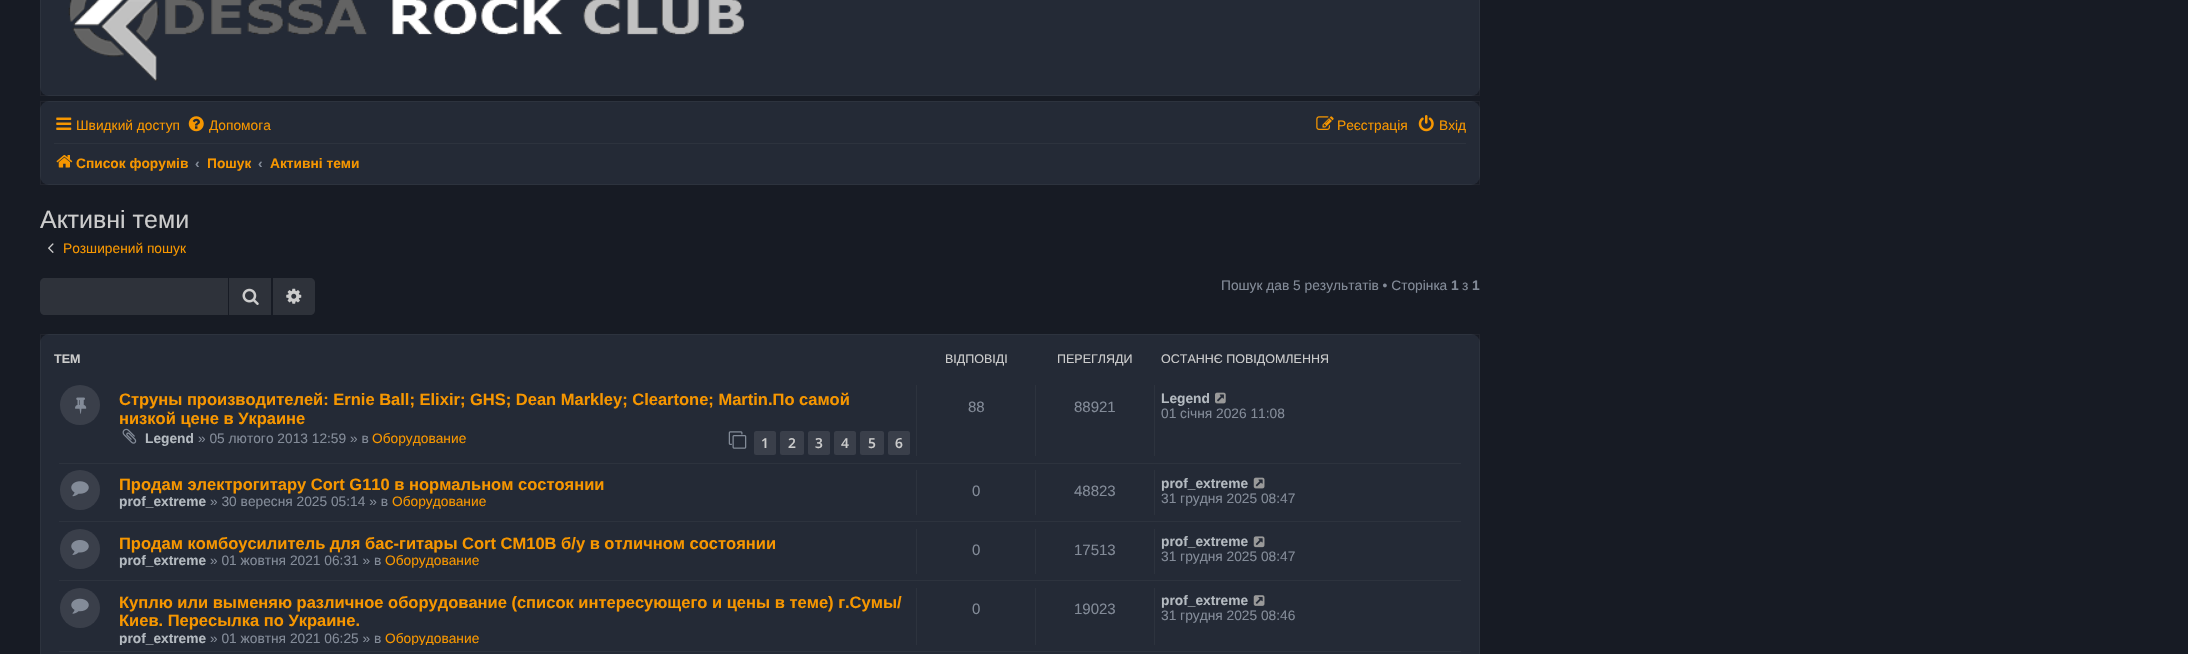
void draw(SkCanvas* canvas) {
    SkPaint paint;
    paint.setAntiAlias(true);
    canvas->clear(0xFF171B24);
    paint.setColor(0xFF242A36);
    canvas->drawRoundRect(SkRect::MakeXYWH(40, -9, 1440, 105), 9, 9, paint);
    paint.setStyle(SkPaint::kStroke_Style);
    paint.setStrokeWidth(1);
    paint.setColor(0x0AFFFFFF);
    canvas->drawRect(SkRect::MakeXYWH(40.5f, -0.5f, 1439, 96), paint);
    canvas->drawImageRect(SkImages::DeferredFromEncodedData(SkData::MakeFromFileName("img1.png")), SkRect::MakeXYWH(68, 0, 676, 82), SkSamplingOptions());
    paint.setStyle(SkPaint::kFill_Style);
    paint.setColor(0xFF242A36);
    canvas->drawRoundRect(SkRect::MakeXYWH(40, 101, 1440, 84), 9, 9, paint);
    paint.setStyle(SkPaint::kStroke_Style);
    paint.setColor(0x0AFFFFFF);
    canvas->drawRect(SkRect::MakeXYWH(40.5f, 101.5f, 1439, 83), paint);
    canvas->drawImageRect(SkImages::DeferredFromEncodedData(SkData::MakeFromFileName("img2.png")), SkRect::MakeXYWH(56, 117, 16, 13), SkSamplingOptions());
    SkFont font1(fontMgr->matchFamilyStyle("Liberation Sans", SkFontStyle::Normal()), 13.75f);
    font1.setSubpixel(true);
    paint.setStyle(SkPaint::kFill_Style);
    paint.setColor(0xFFF69600);
    canvas->drawString("Швидкий доступ", 76, 130, font1, paint);
    canvas->drawImageRect(SkImages::DeferredFromEncodedData(SkData::MakeFromFileName("img3.png")), SkRect::MakeXYWH(188, 116, 16, 16), SkSamplingOptions());
    canvas->drawString("Допомога", 209, 130, font1, paint);
    canvas->drawImageRect(SkImages::DeferredFromEncodedData(SkData::MakeFromFileName("img4.png")), SkRect::MakeXYWH(1316, 116, 18, 14), SkSamplingOptions());
    canvas->drawString("Реєстрація", 1337, 130, font1, paint);
    canvas->drawImageRect(SkImages::DeferredFromEncodedData(SkData::MakeFromFileName("img5.png")), SkRect::MakeXYWH(1418, 115, 16, 17), SkSamplingOptions());
    canvas->drawString("Вхід", 1439, 130, font1, paint);
    paint.setColor(0xFF2D333E);
    canvas->drawRect(SkRect::MakeXYWH(54, 143, 1412, 1), paint);
    canvas->drawImageRect(SkImages::DeferredFromEncodedData(SkData::MakeFromFileName("img6.png")), SkRect::MakeXYWH(56, 155, 17, 13), SkSamplingOptions());
    SkFont font2(fontMgr->matchFamilyStyle("Liberation Sans", SkFontStyle::Bold()), 13.75f);
    font2.setSubpixel(true);
    paint.setColor(0xFFF69600);
    canvas->drawString("Список форумів", 76, 168, font2, paint);
    paint.setColor(0xFF838B98);
    canvas->drawString("‹", 195, 168, font2, paint);
    canvas->save();
    canvas->clipRect(SkRect::MakeXYWH(208, 148, 43, 30));
    paint.setColor(0xFFF69600);
    canvas->drawString("Пошук", 207, 168, font2, paint);
    canvas->restore();
    paint.setColor(0xFF838B98);
    canvas->drawString("‹", 258, 168, font2, paint);
    paint.setColor(0xFFF69600);
    canvas->drawString("Активні теми", 270, 168, font2, paint);
    SkFont font3(fontMgr->matchFamilyStyle("Liberation Sans", SkFontStyle::Normal()), 25);
    font3.setSubpixel(true);
    paint.setColor(0xFFCCCCCC);
    canvas->drawString("Активні теми", 40, 228, font3, paint);
    canvas->drawImageRect(SkImages::DeferredFromEncodedData(SkData::MakeFromFileName("img7.png")), SkRect::MakeXYWH(48, 243, 6, 10), SkSamplingOptions());
    paint.setColor(0xFFF69600);
    canvas->drawString("Розширений пошук", 63, 253, font1, paint);
    paint.setColor(0xFF2E323A);
    canvas->drawPath(SkPathBuilder().moveTo(45, 278).lineTo(228, 278).lineTo(228, 315).lineTo(45, 315).cubicTo(42, 315, 40, 313, 40, 310).lineTo(40, 283).cubicTo(40, 280, 42, 278, 45, 278).close().detach(), paint);
    canvas->drawRect(SkRect::MakeXYWH(229, 278, 42, 37), paint);
    canvas->drawImageRect(SkImages::DeferredFromEncodedData(SkData::MakeFromFileName("img8.png")), SkRect::MakeXYWH(242, 288, 17, 17), SkSamplingOptions());
    canvas->drawPath(SkPathBuilder().moveTo(273, 278).lineTo(310, 278).cubicTo(313, 278, 315, 280, 315, 283).lineTo(315, 310).cubicTo(315, 313, 313, 315, 310, 315).lineTo(273, 315).close().detach(), paint);
    canvas->drawImageRect(SkImages::DeferredFromEncodedData(SkData::MakeFromFileName("img9.png")), SkRect::MakeXYWH(286, 288, 16, 16), SkSamplingOptions());
    paint.setColor(0xFF838B98);
    canvas->drawString("Пошук дав 5 результатів • Сторінка", 1221, 290, font1, paint);
    canvas->drawString("1", 1451, 290, font2, paint);
    canvas->drawString("з", 1462, 290, font1, paint);
    canvas->drawString("1", 1472, 290, font2, paint);
    paint.setColor(0xFF242A36);
    canvas->drawRoundRect(SkRect::MakeXYWH(40, 334, 1440, 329), 9, 9, paint);
    paint.setStyle(SkPaint::kStroke_Style);
    paint.setColor(0x0AFFFFFF);
    canvas->drawRect(SkRect::MakeXYWH(40.5f, 334.5f, 1439, 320), paint);
    SkFont font4(fontMgr->matchFamilyStyle("Liberation Sans", SkFontStyle::Bold()), 12.5f);
    font4.setSubpixel(true);
    paint.setStyle(SkPaint::kFill_Style);
    paint.setColor(0xFFCCCCCC);
    canvas->drawString("ТЕМ", 54, 363, font4, paint);
    SkFont font5(fontMgr->matchFamilyStyle("Liberation Sans", SkFontStyle::Normal()), 12.5f);
    font5.setSubpixel(true);
    canvas->drawString("ВІДПОВІДІ", 945, 363, font5, paint);
    canvas->drawString("ПЕРЕГЛЯДИ", 1057, 363, font5, paint);
    canvas->drawString("ОСТАННЄ ПОВІДОМЛЕННЯ", 1161, 363, font5, paint);
    paint.setColor(0xFF2D333E);
    canvas->drawRect(SkRect::MakeXYWH(59, 463, 1402, 1), paint);
    paint.setColor(0xFF3A3F4A);
    canvas->drawCircle(80, 405, 20, paint);
    canvas->drawImageRect(SkImages::DeferredFromEncodedData(SkData::MakeFromFileName("img10.png")), SkRect::MakeXYWH(75, 397, 12, 17), SkSamplingOptions());
    SkFont font6(fontMgr->matchFamilyStyle("Liberation Sans", SkFontStyle::Bold()), 16.5f);
    font6.setSubpixel(true);
    paint.setColor(0xFFF69600);
    canvas->drawString("Cтруны производителей: Ernie Ball; Elixir; GHS; Dean Markley; Cleartone; Martin.По самой", 119, 405, font6, paint);
    canvas->drawString("низкой цене в Украине", 119, 424, font6, paint);
    canvas->drawImageRect(SkImages::DeferredFromEncodedData(SkData::MakeFromFileName("img11.png")), SkRect::MakeXYWH(122, 428, 15, 16), SkSamplingOptions());
    paint.setColor(0xFFB4BAC0);
    canvas->drawString("Legend", 145, 443, font2, paint);
    paint.setColor(0xFF838B98);
    canvas->drawString("» 05 лютого 2013 12:59 » в", 198, 443, font1, paint);
    paint.setColor(0xFFF69600);
    canvas->drawString("Оборудование", 372, 443, font1, paint);
    canvas->drawImageRect(SkImages::DeferredFromEncodedData(SkData::MakeFromFileName("img12.png")), SkRect::MakeXYWH(728, 431, 19, 18), SkSamplingOptions());
    paint.setColor(0xFF3A3F4A);
    canvas->drawRoundRect(SkRect::MakeXYWH(754, 431, 22, 24), 2.5f, 2.5f, paint);
    SkFont font7(fontMgr->matchFamilyStyle("Open Sans", SkFontStyle(600, SkFontStyle::kNormal_Width, SkFontStyle::kUpright_Slant)), 13.75f);
    font7.setSubpixel(true);
    paint.setColor(0xFFCCCCCC);
    canvas->drawString("1", 761, 448, font7, paint);
    paint.setColor(0xFF3A3F4A);
    canvas->drawRoundRect(SkRect::MakeXYWH(780, 431, 24, 24), 2.5f, 2.5f, paint);
    paint.setColor(0xFFCCCCCC);
    canvas->drawString("2", 788, 448, font7, paint);
    paint.setColor(0xFF3A3F4A);
    canvas->drawRoundRect(SkRect::MakeXYWH(808, 431, 22, 24), 2.5f, 2.5f, paint);
    paint.setColor(0xFFCCCCCC);
    canvas->drawString("3", 815, 448, font7, paint);
    paint.setColor(0xFF3A3F4A);
    canvas->drawRoundRect(SkRect::MakeXYWH(834, 431, 22, 24), 2.5f, 2.5f, paint);
    paint.setColor(0xFFCCCCCC);
    canvas->drawString("4", 841, 448, font7, paint);
    paint.setColor(0xFF3A3F4A);
    canvas->drawRoundRect(SkRect::MakeXYWH(860, 431, 24, 24), 2.5f, 2.5f, paint);
    paint.setColor(0xFFCCCCCC);
    canvas->drawString("5", 868, 448, font7, paint);
    paint.setColor(0xFF3A3F4A);
    canvas->drawRoundRect(SkRect::MakeXYWH(888, 431, 22, 24), 2.5f, 2.5f, paint);
    paint.setColor(0xFFCCCCCC);
    canvas->drawString("6", 895, 448, font7, paint);
    paint.setColor(0xFF2D333E);
    canvas->drawRect(SkRect::MakeXYWH(916, 385, 1, 71), paint);
    SkFont font8(fontMgr->matchFamilyStyle("Liberation Sans", SkFontStyle::Normal()), 15);
    font8.setSubpixel(true);
    paint.setColor(0xFF838B98);
    canvas->drawString("88", 968, 412, font8, paint);
    paint.setColor(0xFF2D333E);
    canvas->drawRect(SkRect::MakeXYWH(1035, 385, 1, 71), paint);
    paint.setColor(0xFF838B98);
    canvas->drawString("88921", 1074, 412, font8, paint);
    paint.setColor(0xFF2D333E);
    canvas->drawRect(SkRect::MakeXYWH(1154, 385, 1, 71), paint);
    paint.setColor(0xFFB4BAC0);
    canvas->drawString("Legend", 1161, 403, font2, paint);
    canvas->drawImageRect(SkImages::DeferredFromEncodedData(SkData::MakeFromFileName("img13.png")), SkRect::MakeXYWH(1215, 392, 11, 12), SkSamplingOptions());
    paint.setColor(0xFF838B98);
    canvas->drawString("01 січня 2026 11:08", 1161, 418, font1, paint);
    paint.setColor(0xFF2D333E);
    canvas->drawRect(SkRect::MakeXYWH(59, 521, 1402, 1), paint);
    paint.setColor(0xFF3A3F4A);
    canvas->drawCircle(80, 490, 20, paint);
    canvas->drawImageRect(SkImages::DeferredFromEncodedData(SkData::MakeFromFileName("img14.png")), SkRect::MakeXYWH(71, 481, 18, 16), SkSamplingOptions());
    paint.setColor(0xFFF69600);
    canvas->drawString("Продам электрогитару Сort G110 в нормальном состоянии", 119, 490, font6, paint);
    paint.setColor(0xFFB4BAC0);
    canvas->drawString("prof_extreme", 119, 506, font2, paint);
    paint.setColor(0xFF838B98);
    canvas->drawString("» 30 вересня 2025 05:14 » в", 210, 506, font1, paint);
    paint.setColor(0xFFF69600);
    canvas->drawString("Оборудование", 392, 506, font1, paint);
    paint.setColor(0xFF2D333E);
    canvas->drawRect(SkRect::MakeXYWH(916, 470, 1, 45), paint);
    paint.setColor(0xFF838B98);
    canvas->drawString("0", 972, 496, font8, paint);
    paint.setColor(0xFF2D333E);
    canvas->drawRect(SkRect::MakeXYWH(1035, 470, 1, 45), paint);
    paint.setColor(0xFF838B98);
    canvas->drawString("48823", 1074, 496, font8, paint);
    paint.setColor(0xFF2D333E);
    canvas->drawRect(SkRect::MakeXYWH(1154, 470, 1, 45), paint);
    paint.setColor(0xFFB4BAC0);
    canvas->drawString("prof_extreme", 1161, 488, font2, paint);
    canvas->drawImageRect(SkImages::DeferredFromEncodedData(SkData::MakeFromFileName("img15.png")), SkRect::MakeXYWH(1253, 477, 12, 12), SkSamplingOptions());
    paint.setColor(0xFF838B98);
    canvas->drawString("31 грудня 2025 08:47", 1161, 503, font1, paint);
    paint.setColor(0xFF2D333E);
    canvas->drawRect(SkRect::MakeXYWH(59, 580, 1402, 1), paint);
    paint.setColor(0xFF3A3F4A);
    canvas->drawCircle(80, 549, 20, paint);
    canvas->drawImageRect(SkImages::DeferredFromEncodedData(SkData::MakeFromFileName("img16.png")), SkRect::MakeXYWH(71, 540, 18, 15), SkSamplingOptions());
    paint.setColor(0xFFF69600);
    canvas->drawString("Продам комбоусилитель для бас-гитары Cort CM10B б/у в отличном состоянии", 119, 549, font6, paint);
    paint.setColor(0xFFB4BAC0);
    canvas->drawString("prof_extreme", 119, 565, font2, paint);
    paint.setColor(0xFF838B98);
    canvas->drawString("» 01 жовтня 2021 06:31 » в", 210, 565, font1, paint);
    paint.setColor(0xFFF69600);
    canvas->drawString("Оборудование", 385, 565, font1, paint);
    paint.setColor(0xFF2D333E);
    canvas->drawRect(SkRect::MakeXYWH(916, 529, 1, 45), paint);
    paint.setColor(0xFF838B98);
    canvas->drawString("0", 972, 555, font8, paint);
    paint.setColor(0xFF2D333E);
    canvas->drawRect(SkRect::MakeXYWH(1035, 529, 1, 45), paint);
    paint.setColor(0xFF838B98);
    canvas->drawString("17513", 1074, 555, font8, paint);
    paint.setColor(0xFF2D333E);
    canvas->drawRect(SkRect::MakeXYWH(1154, 529, 1, 45), paint);
    paint.setColor(0xFFB4BAC0);
    canvas->drawString("prof_extreme", 1161, 546, font2, paint);
    canvas->drawImageRect(SkImages::DeferredFromEncodedData(SkData::MakeFromFileName("img17.png")), SkRect::MakeXYWH(1253, 536, 12, 12), SkSamplingOptions());
    paint.setColor(0xFF838B98);
    canvas->drawString("31 грудня 2025 08:47", 1161, 561, font1, paint);
    paint.setColor(0xFF2D333E);
    canvas->drawRect(SkRect::MakeXYWH(59, 651, 1402, 1), paint);
    paint.setColor(0xFF3A3F4A);
    canvas->drawCircle(80, 608, 20, paint);
    canvas->drawImageRect(SkImages::DeferredFromEncodedData(SkData::MakeFromFileName("img18.png")), SkRect::MakeXYWH(71, 598, 18, 16), SkSamplingOptions());
    paint.setColor(0xFFF69600);
    canvas->drawString("Куплю или выменяю различное оборудование (список интересующего и цены в теме) г.Сумы/", 119, 608, font6, paint);
    canvas->drawString("Киев. Пересылка по Украине.", 119, 626, font6, paint);
    canvas->save();
    canvas->clipRect(SkRect::MakeXYWH(54, 588, 1412, 57));
    paint.setColor(0xFFB4BAC0);
    canvas->drawString("prof_extreme", 119, 643, font2, paint);
    canvas->restore();
    paint.setColor(0xFF838B98);
    canvas->drawString("» 01 жовтня 2021 06:25 » в", 210, 643, font1, paint);
    canvas->save();
    canvas->clipRect(SkRect::MakeXYWH(54, 588, 1412, 57));
    paint.setColor(0xFFF69600);
    canvas->drawString("Оборудование", 385, 643, font1, paint);
    canvas->restore();
    paint.setColor(0xFF2D333E);
    canvas->drawRect(SkRect::MakeXYWH(916, 588, 1, 57), paint);
    paint.setColor(0xFF838B98);
    canvas->drawString("0", 972, 614, font8, paint);
    paint.setColor(0xFF2D333E);
    canvas->drawRect(SkRect::MakeXYWH(1035, 588, 1, 57), paint);
    paint.setColor(0xFF838B98);
    canvas->drawString("19023", 1074, 614, font8, paint);
    paint.setColor(0xFF2D333E);
    canvas->drawRect(SkRect::MakeXYWH(1154, 588, 1, 57), paint);
    paint.setColor(0xFFB4BAC0);
    canvas->drawString("prof_extreme", 1161, 605, font2, paint);
    canvas->drawImageRect(SkImages::DeferredFromEncodedData(SkData::MakeFromFileName("img19.png")), SkRect::MakeXYWH(1253, 595, 12, 11), SkSamplingOptions());
    paint.setColor(0xFF838B98);
    canvas->drawString("31 грудня 2025 08:46", 1161, 620, font1, paint);
}
